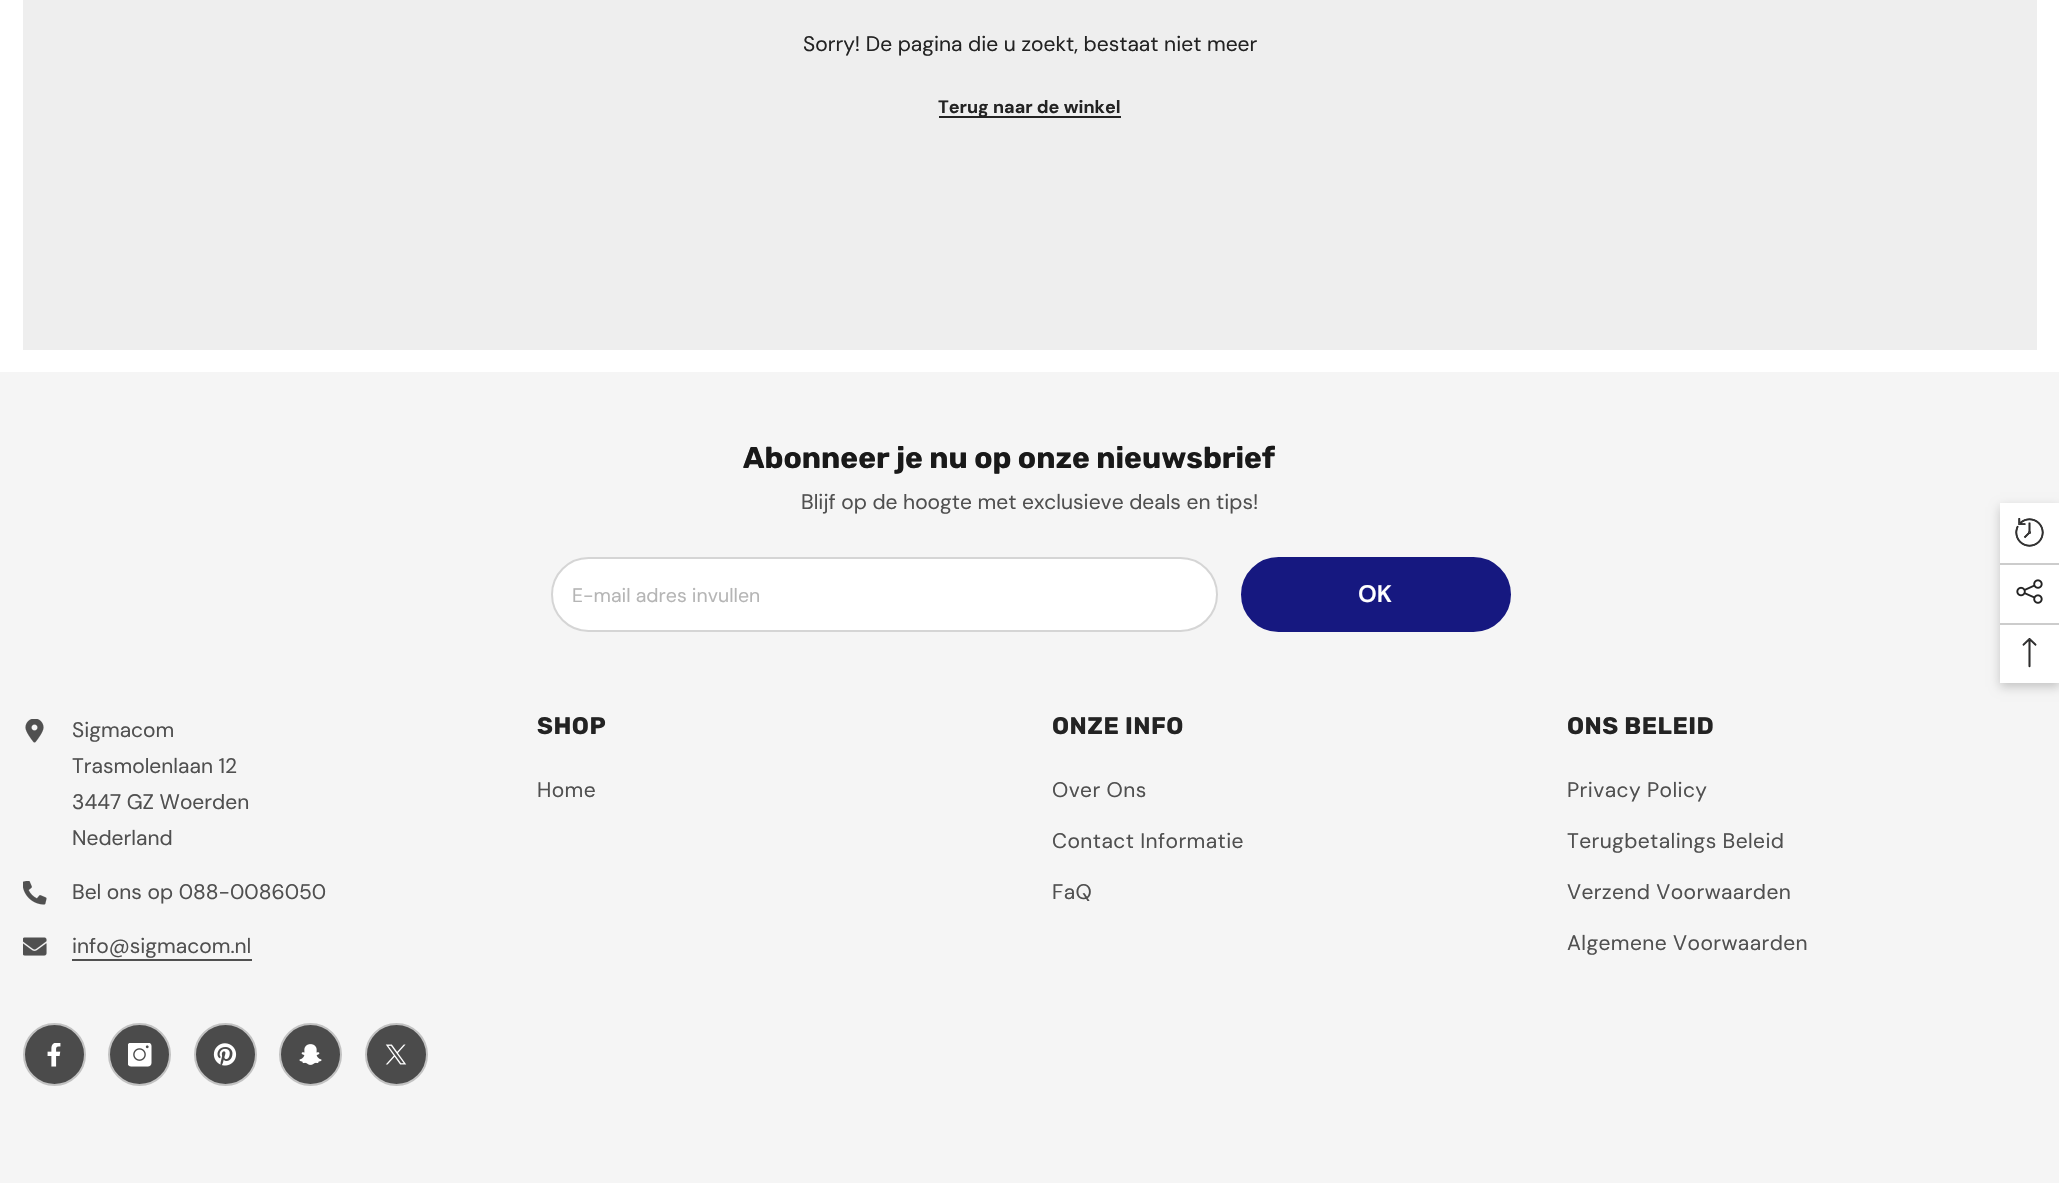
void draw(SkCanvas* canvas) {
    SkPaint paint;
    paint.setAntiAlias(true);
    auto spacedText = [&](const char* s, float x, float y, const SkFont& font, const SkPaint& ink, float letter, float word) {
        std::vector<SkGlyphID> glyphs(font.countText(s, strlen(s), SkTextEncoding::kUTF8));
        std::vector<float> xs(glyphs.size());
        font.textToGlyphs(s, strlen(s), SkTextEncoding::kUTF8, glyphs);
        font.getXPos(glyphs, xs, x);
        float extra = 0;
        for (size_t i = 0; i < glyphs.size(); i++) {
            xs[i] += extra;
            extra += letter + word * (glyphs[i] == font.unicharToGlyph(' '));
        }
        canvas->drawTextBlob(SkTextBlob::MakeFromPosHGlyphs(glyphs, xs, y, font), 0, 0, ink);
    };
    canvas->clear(0xFFFFFFFF);
    paint.setColor(0xFFEEEEEE);
    canvas->drawRect(SkRect::MakeXYWH(23, 0, 2014, 350), paint);
    SkFont font1(fontMgr->matchFamilyStyle("DM Sans", SkFontStyle::Normal()), 21);
    font1.setSubpixel(true);
    paint.setColor(0xFF232323);
    canvas->drawString("Sorry! De pagina die u zoekt, bestaat niet meer", 803, 51, font1, paint);
    canvas->drawRect(SkRect::MakeXYWH(939, 116, 182, 2), paint);
    SkFont font2(fontMgr->matchFamilyStyle("DM Sans", SkFontStyle::Bold()), 18);
    font2.setSubpixel(true);
    canvas->drawString("Terug naar de winkel", 938, 113, font2, paint);
    paint.setColor(0xFFF5F5F5);
    canvas->drawRect(SkRect::MakeXYWH(0, 372, 2059, 811), paint);
    SkFont font3(fontMgr->matchFamilyStyle("Rubik", SkFontStyle::Bold()), 30);
    font3.setSubpixel(true);
    paint.setColor(0xFF191919);
    canvas->drawString("Abonneer je nu op onze nieuwsbrief", 743, 468, font3, paint);
    paint.setColor(0xFF505050);
    canvas->drawString("Blijf op de hoogte met exclusieve deals en tips!", 801, 509, font1, paint);
    paint.setColor(0xFFFFFFFF);
    canvas->drawRoundRect(SkRect::MakeXYWH(552, 558, 665, 73), 36.5f, 36.5f, paint);
    paint.setStyle(SkPaint::kStroke_Style);
    paint.setStrokeWidth(2);
    paint.setColor(0xFFD5D5D5);
    canvas->drawRoundRect(SkRect::MakeXYWH(552, 558, 665, 73), 36.5f, 36.5f, paint);
    SkFont font4(fontMgr->matchFamilyStyle("DM Sans", SkFontStyle::Normal()), 19.5f);
    font4.setSubpixel(true);
    paint.setStyle(SkPaint::kFill_Style);
    paint.setColor(0xFFB5B5B5);
    canvas->drawString("E-mail adres invullen", 572, 602, font4, paint);
    paint.setColor(0xFF161880);
    canvas->drawRoundRect(SkRect::MakeXYWH(1242, 558, 268, 73), 36.5f, 36.5f, paint);
    paint.setStyle(SkPaint::kStroke_Style);
    canvas->drawRoundRect(SkRect::MakeXYWH(1242, 558, 268, 73), 36.5f, 36.5f, paint);
    SkFont font5(fontMgr->matchFamilyStyle("DM Sans", SkFontStyle(600, SkFontStyle::kNormal_Width, SkFontStyle::kUpright_Slant)), 24);
    font5.setSubpixel(true);
    paint.setStyle(SkPaint::kFill_Style);
    paint.setColor(0xFFFFFFFF);
    canvas->drawString("OK", 1358, 602, font5, paint);
    canvas->drawImageRect(SkImages::DeferredFromEncodedData(SkData::MakeFromFileName("img1.png")), SkRect::MakeXYWH(25, 719, 19, 24), SkSamplingOptions());
    paint.setColor(0xFF505050);
    canvas->drawString("Sigmacom", 72, 737, font1, paint);
    canvas->drawString("Trasmolenlaan 12", 72, 773, font1, paint);
    canvas->drawString("3447 GZ Woerden", 72, 809, font1, paint);
    canvas->drawString("Nederland", 72, 845, font1, paint);
    canvas->drawImageRect(SkImages::DeferredFromEncodedData(SkData::MakeFromFileName("img2.png")), SkRect::MakeXYWH(23, 881, 24, 24), SkSamplingOptions());
    canvas->drawString("Bel ons op 088-0086050", 72, 899, font1, paint);
    canvas->drawImageRect(SkImages::DeferredFromEncodedData(SkData::MakeFromFileName("img3.png")), SkRect::MakeXYWH(23, 937, 24, 19), SkSamplingOptions());
    canvas->drawString("info@sigmacom.nl", 72, 953, font1, paint);
    canvas->drawRect(SkRect::MakeXYWH(72, 959, 180, 2), paint);
    paint.setColor(0xFF4B4B4B);
    canvas->drawCircle(54.5f, 1054.5f, 30.5f, paint);
    paint.setStyle(SkPaint::kStroke_Style);
    paint.setColor(0xFFC2C2C2);
    canvas->drawCircle(54.5f, 1054.5f, 30.5f, paint);
    canvas->drawImageRect(SkImages::DeferredFromEncodedData(SkData::MakeFromFileName("img4.png")), SkRect::MakeXYWH(47, 1043, 14, 24), SkSamplingOptions());
    paint.setStyle(SkPaint::kFill_Style);
    paint.setColor(0xFF4B4B4B);
    canvas->drawCircle(139.5f, 1054.5f, 30.5f, paint);
    paint.setStyle(SkPaint::kStroke_Style);
    paint.setColor(0xFFC2C2C2);
    canvas->drawCircle(139.5f, 1054.5f, 30.5f, paint);
    canvas->drawImageRect(SkImages::DeferredFromEncodedData(SkData::MakeFromFileName("img5.png")), SkRect::MakeXYWH(128, 1043, 24, 24), SkSamplingOptions());
    paint.setStyle(SkPaint::kFill_Style);
    paint.setColor(0xFF4B4B4B);
    canvas->drawCircle(225.5f, 1054.5f, 30.5f, paint);
    paint.setStyle(SkPaint::kStroke_Style);
    paint.setColor(0xFFC2C2C2);
    canvas->drawCircle(225.5f, 1054.5f, 30.5f, paint);
    canvas->drawImageRect(SkImages::DeferredFromEncodedData(SkData::MakeFromFileName("img6.png")), SkRect::MakeXYWH(213, 1043, 24, 23), SkSamplingOptions());
    paint.setStyle(SkPaint::kFill_Style);
    paint.setColor(0xFF4B4B4B);
    canvas->drawCircle(310.5f, 1054.5f, 30.5f, paint);
    paint.setStyle(SkPaint::kStroke_Style);
    paint.setColor(0xFFC2C2C2);
    canvas->drawCircle(310.5f, 1054.5f, 30.5f, paint);
    canvas->drawImageRect(SkImages::DeferredFromEncodedData(SkData::MakeFromFileName("img7.png")), SkRect::MakeXYWH(299, 1044, 23, 21), SkSamplingOptions());
    paint.setStyle(SkPaint::kFill_Style);
    paint.setColor(0xFF4B4B4B);
    canvas->drawCircle(396.5f, 1054.5f, 30.5f, paint);
    paint.setStyle(SkPaint::kStroke_Style);
    paint.setColor(0xFFC2C2C2);
    canvas->drawCircle(396.5f, 1054.5f, 30.5f, paint);
    canvas->drawImageRect(SkImages::DeferredFromEncodedData(SkData::MakeFromFileName("img8.png")), SkRect::MakeXYWH(385, 1044, 22, 21), SkSamplingOptions());
    SkFont font6(fontMgr->matchFamilyStyle("Rubik", SkFontStyle::Bold()), 24);
    font6.setSubpixel(true);
    paint.setStyle(SkPaint::kFill_Style);
    paint.setColor(0xFF232323);
    spacedText("SHOP", 537, 734, font6, paint, 0.5f, 0);
    paint.setColor(0xFF505050);
    spacedText("Home", 537, 797, font1, paint, 0.4f, 0);
    paint.setColor(0xFF232323);
    spacedText("ONZE INFO", 1052, 734, font6, paint, 0.5f, 0);
    paint.setColor(0xFF505050);
    spacedText("Over Ons", 1052, 797, font1, paint, 0.4f, 0);
    spacedText("Contact Informatie", 1052, 848, font1, paint, 0.4f, 0);
    spacedText("FaQ", 1052, 899, font1, paint, 0.4f, 0);
    paint.setColor(0xFF232323);
    spacedText("ONS BELEID", 1567, 734, font6, paint, 0.5f, 0);
    paint.setColor(0xFF505050);
    spacedText("Privacy Policy", 1567, 797, font1, paint, 0.4f, 0);
    spacedText("Terugbetalings Beleid", 1567, 848, font1, paint, 0.4f, 0);
    spacedText("Verzend Voorwaarden", 1567, 899, font1, paint, 0.4f, 0);
    spacedText("Algemene Voorwaarden", 1567, 950, font1, paint, 0.4f, 0);
    paint.setColor(0x33000000);
    paint.setMaskFilter(SkMaskFilter::MakeBlur(kNormal_SkBlurStyle, 5));
    canvas->drawRect(SkRect::MakeXYWH(2000, 507, 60, 180), paint);
    paint.setMaskFilter(nullptr);
    paint.setColor(0xFFFFFFFF);
    canvas->drawRect(SkRect::MakeXYWH(2000, 503, 59, 180), paint);
    canvas->drawImageRect(SkImages::DeferredFromEncodedData(SkData::MakeFromFileName("img9.png")), SkRect::MakeXYWH(2015, 518, 29, 29), SkSamplingOptions());
    paint.setColor(0xFFCCCCCC);
    canvas->drawRect(SkRect::MakeXYWH(2000, 563, 59, 2), paint);
    canvas->drawImageRect(SkImages::DeferredFromEncodedData(SkData::MakeFromFileName("img10.png")), SkRect::MakeXYWH(2016, 579, 27, 25), SkSamplingOptions());
    canvas->drawRect(SkRect::MakeXYWH(2000, 623, 59, 2), paint);
    canvas->drawImageRect(SkImages::DeferredFromEncodedData(SkData::MakeFromFileName("img11.png")), SkRect::MakeXYWH(2022, 638, 15, 30), SkSamplingOptions());
}
